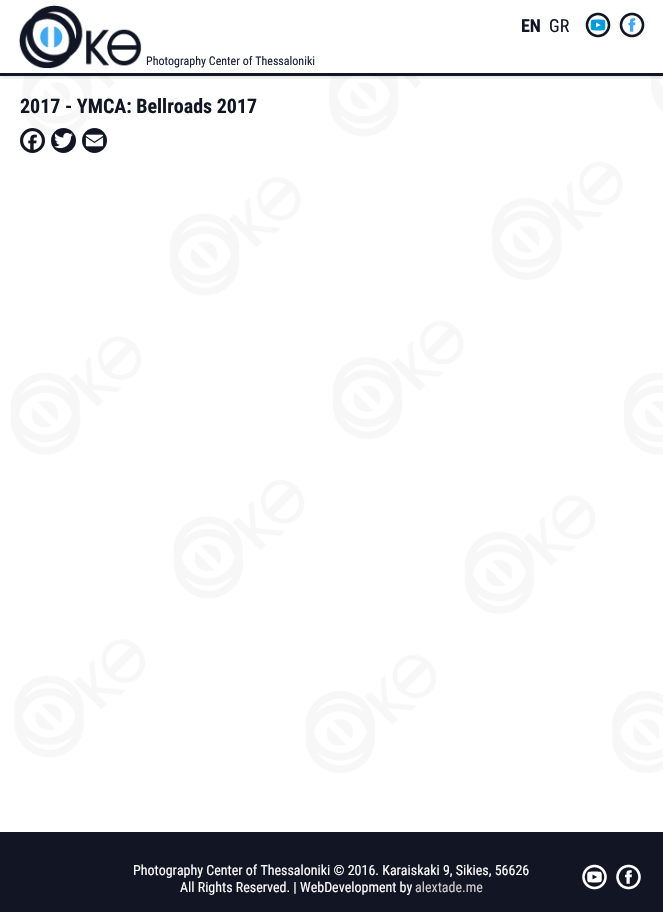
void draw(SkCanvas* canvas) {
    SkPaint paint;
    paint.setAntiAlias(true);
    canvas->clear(0xFFFFFFFF);
    canvas->drawImageRect(SkImages::DeferredFromEncodedData(SkData::MakeFromFileName("img4.png")), SkRect::MakeXYWH(10, 76, 653, 697), SkSamplingOptions());
    canvas->save();
    canvas->clipRect(SkRect::MakeXYWH(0, 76, 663, 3));
    paint.setColor(0x1A000000);
    paint.setMaskFilter(SkMaskFilter::MakeBlur(kNormal_SkBlurStyle, 1.5f));
    canvas->drawRect(SkRect::MakeXYWH(0, 2, 663, 76), paint);
    paint.setMaskFilter(nullptr);
    canvas->restore();
    paint.setColor(0xFF121624);
    canvas->drawRect(SkRect::MakeXYWH(0, 73, 663, 3), paint);
    SkFont font1(fontMgr->matchFamilyStyle("Roboto Condensed", SkFontStyle::Bold()), 18);
    font1.setSubpixel(true);
    canvas->drawString("EN", 521, 32, font1, paint);
    SkFont font2(fontMgr->matchFamilyStyle("Roboto Condensed", SkFontStyle::Normal()), 18);
    font2.setSubpixel(true);
    canvas->drawString("GR", 549, 32, font2, paint);
    canvas->drawImageRect(SkImages::DeferredFromEncodedData(SkData::MakeFromFileName("img1.png")), SkRect::MakeXYWH(585, 12, 26, 26), SkSamplingOptions());
    canvas->drawImageRect(SkImages::DeferredFromEncodedData(SkData::MakeFromFileName("img2.png")), SkRect::MakeXYWH(619, 12, 26, 26), SkSamplingOptions());
    canvas->drawImageRect(SkImages::DeferredFromEncodedData(SkData::MakeFromFileName("img3.png")), SkRect::MakeXYWH(19, 5, 123, 64), SkSamplingOptions());
    SkFont font3(fontMgr->matchFamilyStyle("Roboto Condensed", SkFontStyle::Normal()), 12);
    font3.setSubpixel(true);
    paint.setColor(0xFF181F38);
    canvas->drawString("Photography Center of Thessaloniki", 146, 65, font3, paint);
    SkFont font4(fontMgr->matchFamilyStyle("Roboto Condensed", SkFontStyle::Bold()), 20);
    font4.setSubpixel(true);
    paint.setColor(0xFF121624);
    canvas->drawString("2017 - YMCA: Bellroads 2017", 20, 113, font4, paint);
    canvas->drawCircle(32.5f, 140.5f, 12.5f, paint);
    canvas->drawImageRect(SkImages::DeferredFromEncodedData(SkData::MakeFromFileName("img5.png")), SkRect::MakeXYWH(23, 131, 19, 19), SkSamplingOptions());
    canvas->drawCircle(63.5f, 140.5f, 12.5f, paint);
    canvas->drawImageRect(SkImages::DeferredFromEncodedData(SkData::MakeFromFileName("img6.png")), SkRect::MakeXYWH(54, 132, 19, 17), SkSamplingOptions());
    canvas->drawCircle(94.5f, 140.5f, 12.5f, paint);
    canvas->drawImageRect(SkImages::DeferredFromEncodedData(SkData::MakeFromFileName("img7.png")), SkRect::MakeXYWH(85, 134, 19, 13), SkSamplingOptions());
    canvas->drawRect(SkRect::MakeXYWH(0, 832, 663, 80), paint);
    SkFont font5(fontMgr->matchFamilyStyle("Roboto Condensed", SkFontStyle::Normal()), 14);
    font5.setSubpixel(true);
    paint.setColor(0xFFFFFFFF);
    canvas->drawString("Photography Center of Thessaloniki © 2016. Karaiskaki 9, Sikies, 56626", 133, 875, font5, paint);
    canvas->drawString("All Rights Reserved. | WebDevelopment by", 180, 892, font5, paint);
    paint.setColor(0xFFCCCCCC);
    canvas->drawString("alextade.me", 415, 892, font5, paint);
    canvas->drawImageRect(SkImages::DeferredFromEncodedData(SkData::MakeFromFileName("img8.png")), SkRect::MakeXYWH(582, 864, 25, 26), SkSamplingOptions());
    canvas->drawImageRect(SkImages::DeferredFromEncodedData(SkData::MakeFromFileName("img9.png")), SkRect::MakeXYWH(616, 864, 25, 26), SkSamplingOptions());
}
